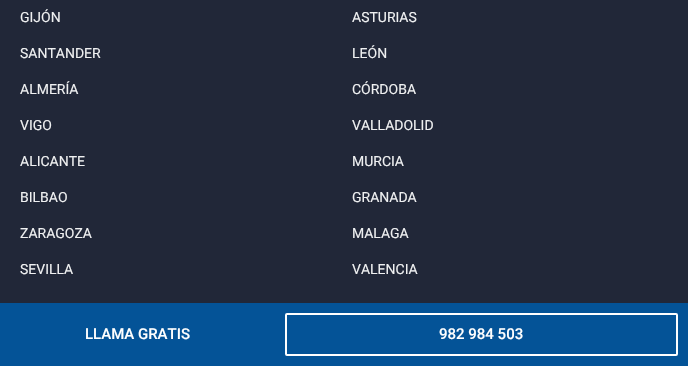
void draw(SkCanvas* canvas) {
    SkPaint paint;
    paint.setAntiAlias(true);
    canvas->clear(0xFF212738);
    SkFont font1(fontMgr->matchFamilyStyle("Roboto", SkFontStyle::Normal()), 14);
    font1.setSubpixel(true);
    paint.setColor(0xFFEFF0F1);
    canvas->drawString("GIJÓN", 20, 22, font1, paint);
    canvas->drawString("ASTURIAS", 352, 22, font1, paint);
    canvas->drawString("SANTANDER", 20, 58, font1, paint);
    canvas->drawString("LEÓN", 352, 58, font1, paint);
    canvas->drawString("ALMERÍA", 20, 94, font1, paint);
    canvas->drawString("CÓRDOBA", 352, 94, font1, paint);
    canvas->drawString("VIGO", 20, 130, font1, paint);
    canvas->drawString("VALLADOLID", 352, 130, font1, paint);
    canvas->drawString("ALICANTE", 20, 166, font1, paint);
    canvas->drawString("MURCIA", 352, 166, font1, paint);
    canvas->drawString("BILBAO", 20, 202, font1, paint);
    canvas->drawString("GRANADA", 352, 202, font1, paint);
    canvas->drawString("ZARAGOZA", 20, 238, font1, paint);
    canvas->drawString("MALAGA", 352, 238, font1, paint);
    canvas->drawString("SEVILLA", 20, 274, font1, paint);
    canvas->drawString("VALENCIA", 352, 274, font1, paint);
    paint.setColor(0xFF045397);
    canvas->drawRect(SkRect::MakeXYWH(0, 303, 688, 63), paint);
    SkFont font2(fontMgr->matchFamilyStyle("Roboto", SkFontStyle(500, SkFontStyle::kNormal_Width, SkFontStyle::kUpright_Slant)), 15);
    font2.setSubpixel(true);
    paint.setColor(0xFFFFFFFF);
    canvas->drawString("LLAMA GRATIS", 85, 339, font2, paint);
    paint.setStyle(SkPaint::kStroke_Style);
    paint.setStrokeWidth(2);
    canvas->drawRoundRect(SkRect::MakeXYWH(286, 314, 391, 41), 1, 1, paint);
    paint.setStyle(SkPaint::kFill_Style);
    canvas->drawString("982 984 503", 439, 339, font2, paint);
}
